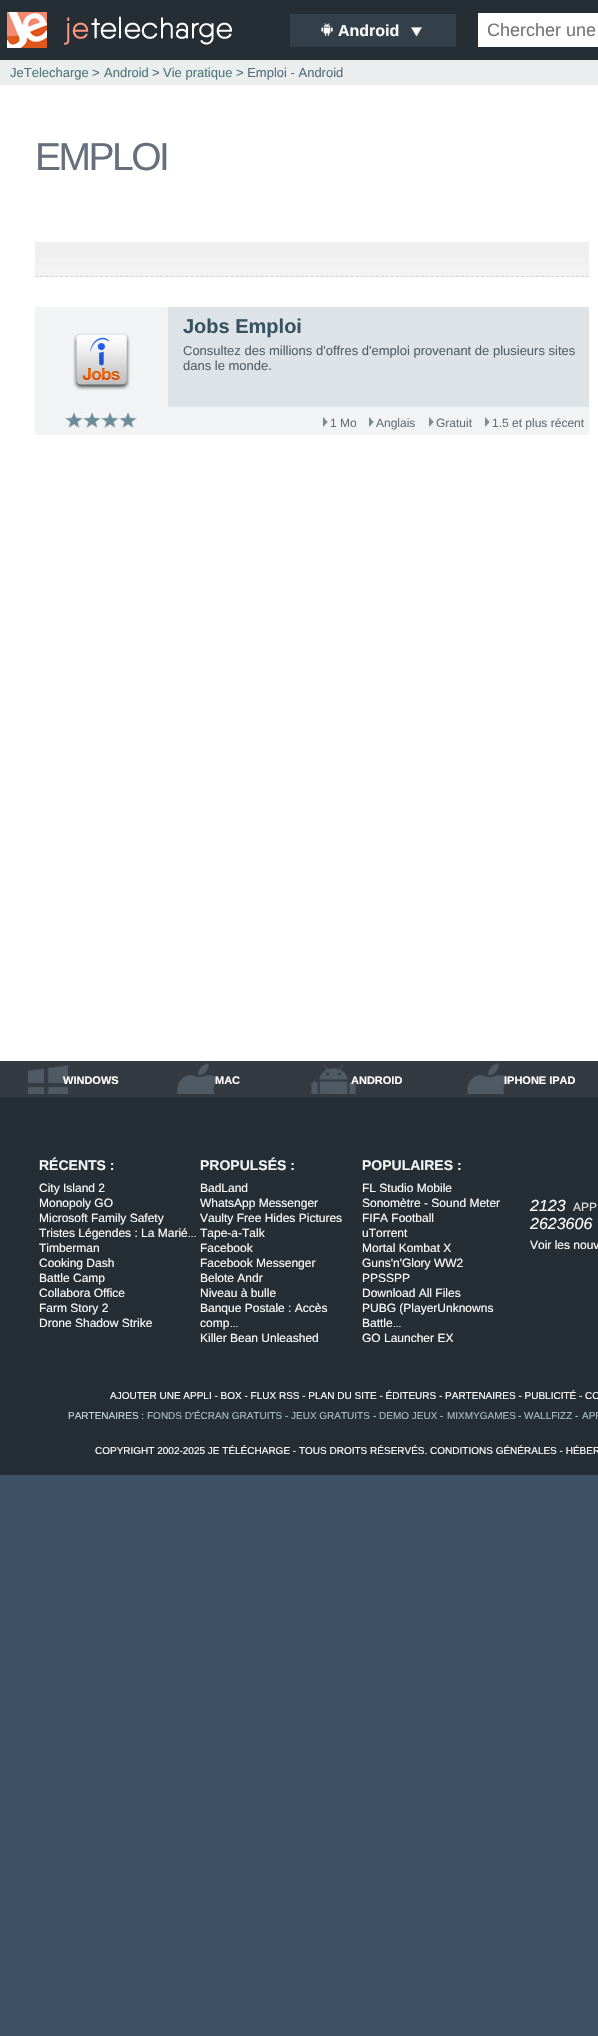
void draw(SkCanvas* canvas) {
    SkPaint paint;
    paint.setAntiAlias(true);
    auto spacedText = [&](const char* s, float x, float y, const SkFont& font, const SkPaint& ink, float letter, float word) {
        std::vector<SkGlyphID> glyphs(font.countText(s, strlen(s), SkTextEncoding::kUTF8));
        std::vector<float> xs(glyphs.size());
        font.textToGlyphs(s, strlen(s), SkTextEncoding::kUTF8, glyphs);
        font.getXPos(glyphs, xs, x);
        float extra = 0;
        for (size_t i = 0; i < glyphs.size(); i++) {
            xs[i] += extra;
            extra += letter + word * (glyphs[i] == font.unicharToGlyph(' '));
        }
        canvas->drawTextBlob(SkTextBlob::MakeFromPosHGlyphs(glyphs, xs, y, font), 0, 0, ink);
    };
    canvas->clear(0xFF3D5267);
    paint.setColor(0xFF262E35);
    canvas->drawRect(SkRect::MakeXYWH(0, 0, 598, 60), paint);
    canvas->drawImageRect(SkImages::DeferredFromEncodedData(SkData::MakeFromFileName("img1.png")), SkRect::MakeXYWH(3, 8, 229, 40), SkSamplingOptions());
    paint.setColor(0xFF33404A);
    canvas->drawRect(SkRect::MakeXYWH(290, 14, 166, 33), paint);
    canvas->drawImageRect(SkImages::DeferredFromEncodedData(SkData::MakeFromFileName("img2.png")), SkRect::MakeXYWH(321, 23, 12, 13), SkSamplingOptions());
    SkFont font1(fontMgr->matchFamilyStyle("Liberation Sans", SkFontStyle::Bold()), 16);
    font1.setSubpixel(true);
    paint.setColor(0xFFF9F9F9);
    canvas->drawString("Android", 338, 36, font1, paint);
    canvas->drawImageRect(SkImages::DeferredFromEncodedData(SkData::MakeFromFileName("img3.png")), SkRect::MakeXYWH(409, 24, 15, 15), SkSamplingOptions());
    paint.setColor(0xFFFFFFFF);
    canvas->drawRect(SkRect::MakeXYWH(478, 13, 120, 34), paint);
    SkFont font2(fontMgr->matchFamilyStyle("Liberation Sans", SkFontStyle::Normal()), 18);
    font2.setSubpixel(true);
    paint.setColor(0xFF757575);
    canvas->drawString("Chercher une", 487, 36, font2, paint);
    paint.setColor(0xFFEAEEEE);
    canvas->drawRect(SkRect::MakeXYWH(0, 60, 598, 25), paint);
    SkFont font3(fontMgr->matchFamilyStyle("Liberation Sans", SkFontStyle::Normal()), 13);
    font3.setSubpixel(true);
    paint.setColor(0xFF50767A);
    canvas->drawString("JeTelecharge", 10, 77, font3, paint);
    paint.setColor(0xFF586D7C);
    canvas->drawString(">", 92, 77, font3, paint);
    paint.setColor(0xFF50767A);
    canvas->drawString("Android", 104, 77, font3, paint);
    paint.setColor(0xFF586D7C);
    canvas->drawString(">", 152, 77, font3, paint);
    paint.setColor(0xFF50767A);
    canvas->drawString("Vie pratique", 163, 77, font3, paint);
    paint.setColor(0xFF586D7C);
    canvas->drawString("> Emploi - Android", 236, 77, font3, paint);
    paint.setColor(0xFFFFFFFF);
    canvas->drawRect(SkRect::MakeXYWH(0, 85, 598, 976), paint);
    SkFont font4(fontMgr->matchFamilyStyle("Liberation Sans", SkFontStyle::Normal()), 39);
    font4.setSubpixel(true);
    paint.setColor(0xFF666F7B);
    spacedText("EMPLOI", 35, 170, font4, paint, -2.5f, 0);
    canvas->drawImageRect(SkImages::DeferredFromEncodedData(SkData::MakeFromFileName("img4.png")), SkRect::MakeXYWH(35, 242, 554, 35), SkSamplingOptions());
    paint.setStyle(SkPaint::kStroke_Style);
    paint.setStrokeWidth(1);
    paint.setColor(0xFFD2D2D2);
    paint.setPathEffect(SkDashPathEffect::Make({{3, 2.01f}}, 0));
    canvas->drawPath(SkPathBuilder().moveTo(35, 276.5f).lineTo(589, 276.5f).detach(), paint);
    paint.setPathEffect(nullptr);
    paint.setStyle(SkPaint::kFill_Style);
    paint.setColor(0xFFDEE3E7);
    canvas->drawRect(SkRect::MakeXYWH(168, 307, 421, 100), paint);
    paint.setColor(0xFFF2F3F4);
    canvas->drawRect(SkRect::MakeXYWH(35, 307, 133, 100), paint);
    canvas->drawImageRect(SkImages::DeferredFromEncodedData(SkData::MakeFromFileName("img5.png")), SkRect::MakeXYWH(73, 333, 57, 57), SkSamplingOptions());
    SkFont font5(fontMgr->matchFamilyStyle("Liberation Sans", SkFontStyle::Bold()), 20);
    font5.setSubpixel(true);
    paint.setColor(0xFF375160);
    canvas->drawString("Jobs Emploi", 183, 333, font5, paint);
    paint.setColor(0xFF546067);
    canvas->drawString("Consultez des millions d'offres d'emploi provenant de plusieurs sites", 183, 355, font3, paint);
    canvas->drawString("dans le monde.", 183, 370, font3, paint);
    paint.setColor(0xFFF2F3F4);
    canvas->drawRect(SkRect::MakeXYWH(35, 407, 554, 28), paint);
    canvas->drawImageRect(SkImages::DeferredFromEncodedData(SkData::MakeFromFileName("img6.png")), SkRect::MakeXYWH(65, 412, 18, 16), SkSamplingOptions());
    canvas->drawImageRect(SkImages::DeferredFromEncodedData(SkData::MakeFromFileName("img6.png")), SkRect::MakeXYWH(83, 412, 18, 16), SkSamplingOptions());
    canvas->drawImageRect(SkImages::DeferredFromEncodedData(SkData::MakeFromFileName("img6.png")), SkRect::MakeXYWH(101, 412, 18, 16), SkSamplingOptions());
    canvas->drawImageRect(SkImages::DeferredFromEncodedData(SkData::MakeFromFileName("img6.png")), SkRect::MakeXYWH(119, 412, 18, 16), SkSamplingOptions());
    canvas->drawImageRect(SkImages::DeferredFromEncodedData(SkData::MakeFromFileName("img7.png")), SkRect::MakeXYWH(321, 415, 7, 12), SkSamplingOptions());
    SkFont font6(fontMgr->matchFamilyStyle("Liberation Sans", SkFontStyle::Normal()), 12);
    font6.setSubpixel(true);
    paint.setColor(0xFF666E74);
    canvas->drawString("1 Mo", 330, 427, font6, paint);
    canvas->drawImageRect(SkImages::DeferredFromEncodedData(SkData::MakeFromFileName("img7.png")), SkRect::MakeXYWH(367, 415, 7, 12), SkSamplingOptions());
    canvas->drawString("Anglais", 376, 427, font6, paint);
    canvas->drawImageRect(SkImages::DeferredFromEncodedData(SkData::MakeFromFileName("img7.png")), SkRect::MakeXYWH(427, 415, 7, 12), SkSamplingOptions());
    canvas->drawString("Gratuit", 436, 427, font6, paint);
    canvas->drawImageRect(SkImages::DeferredFromEncodedData(SkData::MakeFromFileName("img7.png")), SkRect::MakeXYWH(483, 415, 7, 12), SkSamplingOptions());
    canvas->drawString("1.5 et plus récent", 492, 427, font6, paint);
    paint.setColor(0xFF333A42);
    canvas->drawRect(SkRect::MakeXYWH(0, 1061, 598, 36), paint);
    canvas->drawImageRect(SkImages::DeferredFromEncodedData(SkData::MakeFromFileName("img8.png")), SkRect::MakeXYWH(28, 1064, 41, 30), SkSamplingOptions());
    SkFont font7(fontMgr->matchFamilyStyle("Liberation Sans", SkFontStyle::Bold()), 11);
    font7.setSubpixel(true);
    paint.setColor(0xFFFFFFFF);
    canvas->drawString("WINDOWS", 63, 1084, font7, paint);
    canvas->drawImageRect(SkImages::DeferredFromEncodedData(SkData::MakeFromFileName("img9.png")), SkRect::MakeXYWH(177, 1063, 42, 31), SkSamplingOptions());
    canvas->drawString("MAC", 215, 1084, font7, paint);
    canvas->drawImageRect(SkImages::DeferredFromEncodedData(SkData::MakeFromFileName("img10.png")), SkRect::MakeXYWH(311, 1064, 45, 30), SkSamplingOptions());
    canvas->drawString("ANDROID", 351, 1084, font7, paint);
    canvas->drawImageRect(SkImages::DeferredFromEncodedData(SkData::MakeFromFileName("img9.png")), SkRect::MakeXYWH(467, 1063, 42, 31), SkSamplingOptions());
    canvas->drawString("IPHONE IPAD", 504, 1084, font7, paint);
    paint.setColor(0xFF262E35);
    canvas->drawRect(SkRect::MakeXYWH(0, 1097, 598, 378), paint);
    SkFont font8(fontMgr->matchFamilyStyle("Liberation Sans", SkFontStyle::Bold()), 14);
    font8.setSubpixel(true);
    paint.setColor(0xFFF1F5F5);
    canvas->drawString("RÉCENTS :", 39, 1170, font8, paint);
    paint.setColor(0xFFFFFFFF);
    canvas->drawString("City Island 2", 39, 1192, font6, paint);
    canvas->drawString("Monopoly GO", 39, 1207, font6, paint);
    canvas->drawString("Microsoft Family Safety", 39, 1222, font6, paint);
    canvas->drawString("Tristes Légendes : La Marié", 39, 1237, font6, paint);
    SkFont font9(fontMgr->matchFamilyStyle("Liberation Sans", SkFontStyle::Normal()), 10);
    font9.setSubpixel(true);
    canvas->drawString("...", 188, 1237, font9, paint);
    canvas->drawString("Timberman", 39, 1252, font6, paint);
    canvas->drawString("Cooking Dash", 39, 1267, font6, paint);
    canvas->drawString("Battle Camp", 39, 1282, font6, paint);
    canvas->drawString("Collabora Office", 39, 1297, font6, paint);
    canvas->drawString("Farm Story 2", 39, 1312, font6, paint);
    canvas->drawString("Drone Shadow Strike", 39, 1327, font6, paint);
    paint.setColor(0xFFF1F5F5);
    canvas->drawString("PROPULSÉS :", 200, 1170, font8, paint);
    paint.setColor(0xFFFFFFFF);
    canvas->drawString("BadLand", 200, 1192, font6, paint);
    canvas->drawString("WhatsApp Messenger", 200, 1207, font6, paint);
    canvas->drawString("Vaulty Free Hides Pictures", 200, 1222, font6, paint);
    canvas->drawString("Tape-a-Talk", 200, 1237, font6, paint);
    canvas->drawString("Facebook", 200, 1252, font6, paint);
    canvas->drawString("Facebook Messenger", 200, 1267, font6, paint);
    canvas->drawString("Belote Andr", 200, 1282, font6, paint);
    canvas->drawString("Niveau à bulle", 200, 1297, font6, paint);
    canvas->drawString("Banque Postale : Accès", 200, 1312, font6, paint);
    canvas->drawString("comp", 200, 1327, font6, paint);
    canvas->drawString("...", 230, 1327, font9, paint);
    canvas->drawString("Killer Bean Unleashed", 200, 1342, font6, paint);
    paint.setColor(0xFFF1F5F5);
    canvas->drawString("POPULAIRES :", 362, 1170, font8, paint);
    paint.setColor(0xFFFFFFFF);
    canvas->drawString("FL Studio Mobile", 362, 1192, font6, paint);
    canvas->drawString("Sonomètre - Sound Meter", 362, 1207, font6, paint);
    canvas->drawString("FIFA Football", 362, 1222, font6, paint);
    canvas->drawString("uTorrent", 362, 1237, font6, paint);
    canvas->drawString("Mortal Kombat X", 362, 1252, font6, paint);
    canvas->drawString("Guns'n'Glory WW2", 362, 1267, font6, paint);
    canvas->drawString("PPSSPP", 362, 1282, font6, paint);
    canvas->drawString("Download All Files", 362, 1297, font6, paint);
    canvas->drawString("PUBG (PlayerUnknowns", 362, 1312, font6, paint);
    canvas->drawString("Battle", 362, 1327, font6, paint);
    canvas->drawString("...", 393, 1327, font9, paint);
    canvas->drawString("GO Launcher EX", 362, 1342, font6, paint);
    SkFont font10(fontMgr->matchFamilyStyle("Liberation Sans", SkFontStyle::Italic()), 16);
    font10.setSubpixel(true);
    canvas->drawString("2123", 530, 1211, font10, paint);
    paint.setColor(0xFFE5E5E5);
    canvas->drawString("APP", 573, 1211, font6, paint);
    paint.setColor(0xFFFFFFFF);
    canvas->drawString("2623606", 530, 1229, font10, paint);
    canvas->drawString("Voir les nouv", 530, 1249, font6, paint);
    canvas->drawString("AJOUTER UNE APPLI - BOX - FLUX RSS - PLAN DU SITE - ÉDITEURS - PARTENAIRES - PUBLICITÉ - CO", 110, 1399, font9, paint);
    paint.setColor(0xFFCAD9DF);
    canvas->drawString("PARTENAIRES :", 68, 1419, font9, paint);
    paint.setColor(0xFFA9BEC3);
    canvas->drawString("FONDS D'ÉCRAN GRATUITS", 147, 1419, font9, paint);
    paint.setColor(0xFFCAD9DF);
    canvas->drawString("-", 285, 1419, font9, paint);
    paint.setColor(0xFFA9BEC3);
    canvas->drawString("JEUX GRATUITS", 291, 1419, font9, paint);
    paint.setColor(0xFFCAD9DF);
    canvas->drawString("-", 373, 1419, font9, paint);
    paint.setColor(0xFFA9BEC3);
    canvas->drawString("DEMO JEUX", 379, 1419, font9, paint);
    paint.setColor(0xFFCAD9DF);
    canvas->drawString("-", 440, 1419, font9, paint);
    paint.setColor(0xFFA9BEC3);
    canvas->drawString("MIXMYGAMES", 447, 1419, font9, paint);
    paint.setColor(0xFFCAD9DF);
    canvas->drawString("-", 518, 1419, font9, paint);
    paint.setColor(0xFFA9BEC3);
    canvas->drawString("WALLFIZZ", 524, 1419, font9, paint);
    paint.setColor(0xFFCAD9DF);
    canvas->drawString("-", 575, 1419, font9, paint);
    paint.setColor(0xFFA9BEC3);
    canvas->drawString("APP", 582, 1419, font9, paint);
    paint.setColor(0xFFFFFFFF);
    canvas->drawString("COPYRIGHT 2002-2025 JE TÉLÉCHARGE - TOUS DROITS RÉSERVÉS. CONDITIONS GÉNÉRALES - HÉBER", 95, 1454, font9, paint);
}
